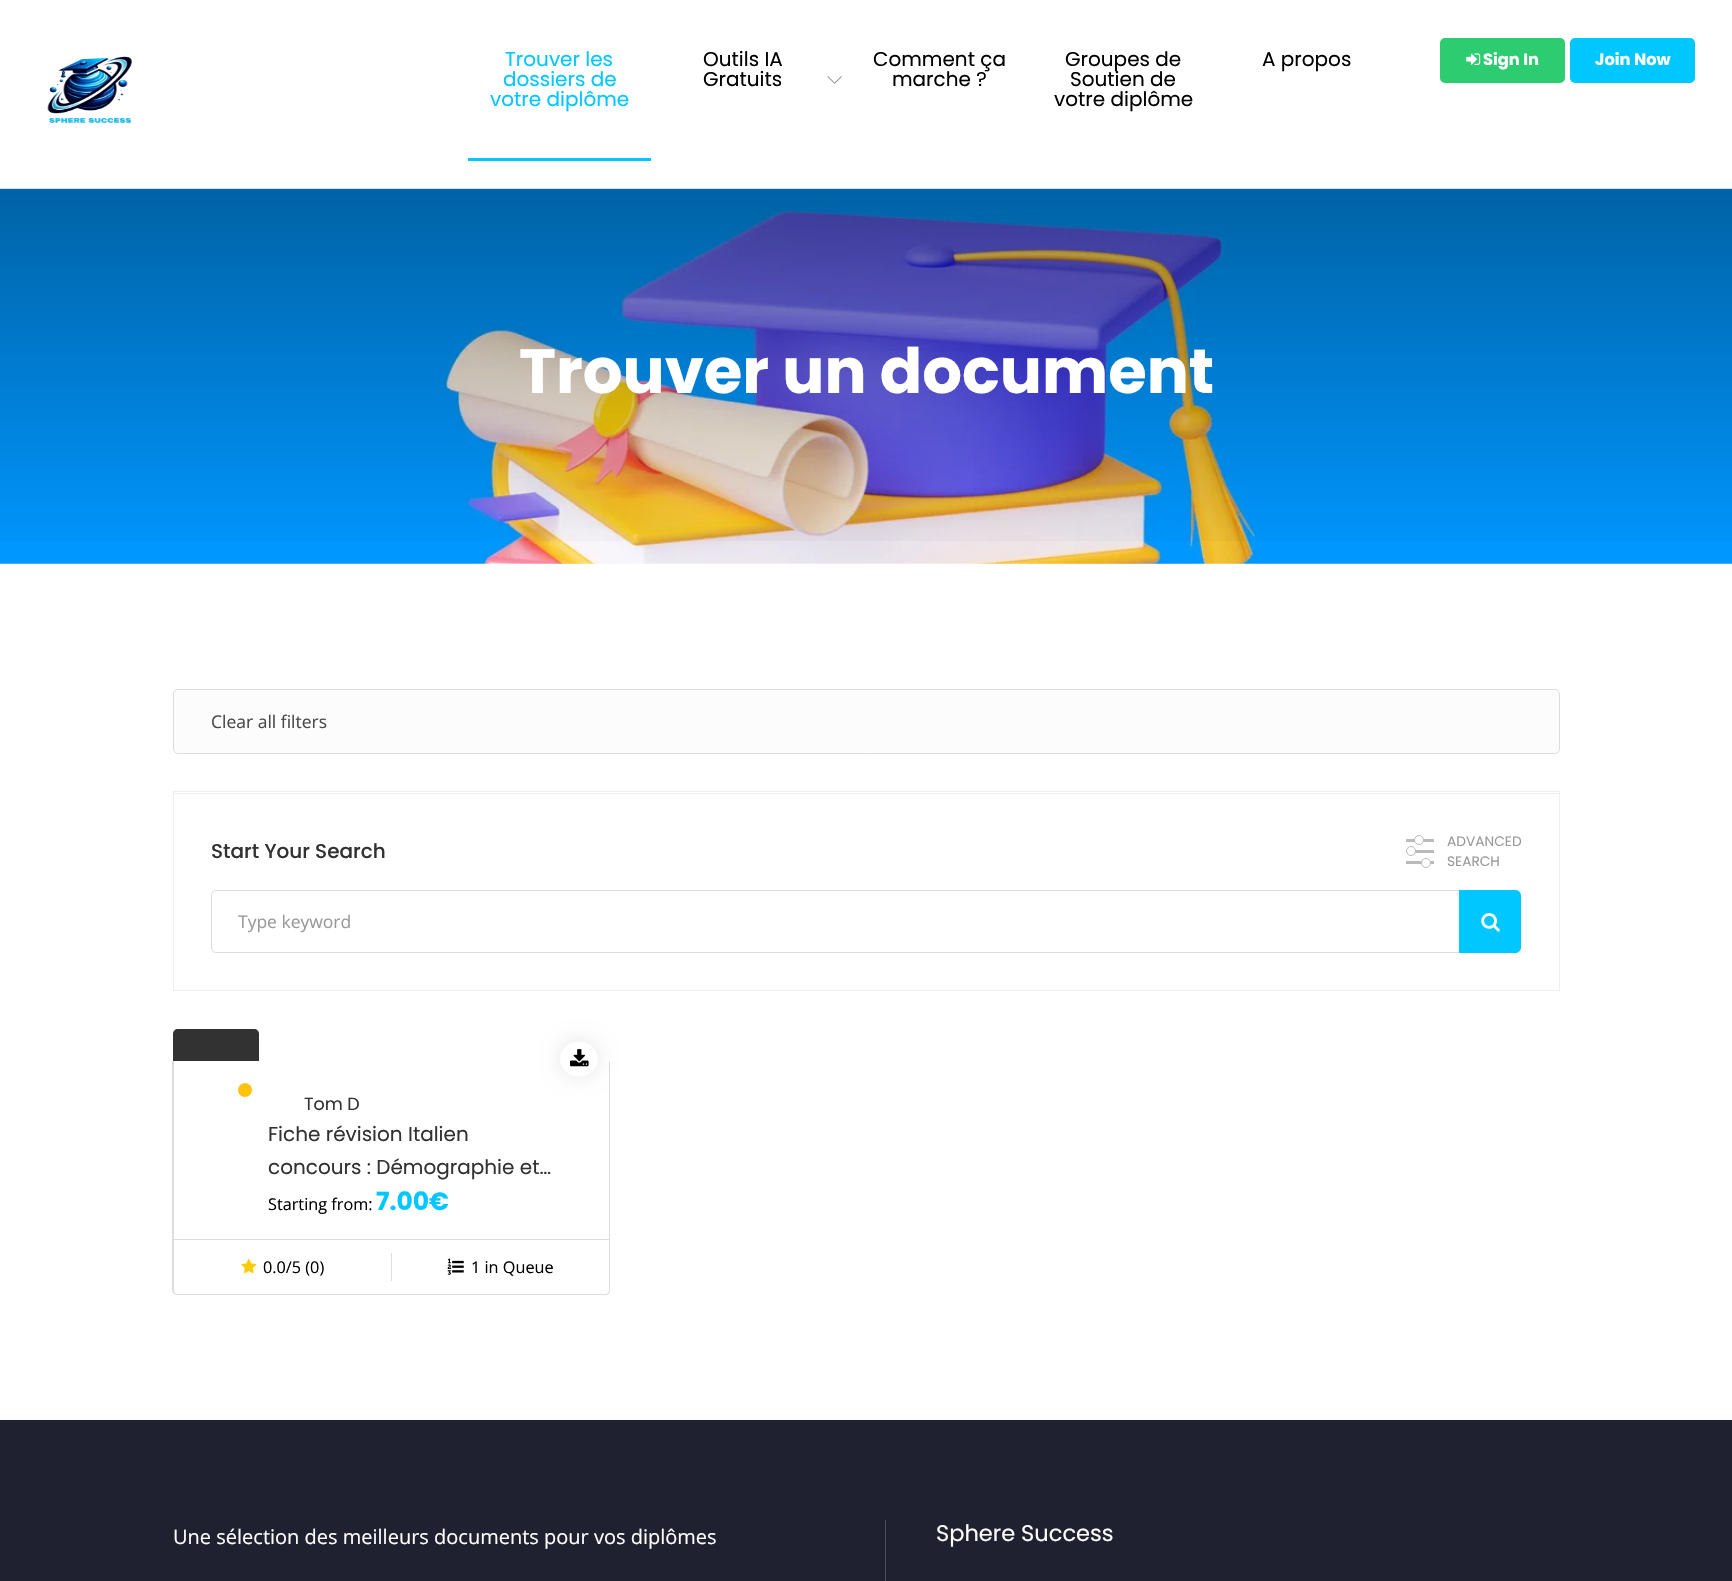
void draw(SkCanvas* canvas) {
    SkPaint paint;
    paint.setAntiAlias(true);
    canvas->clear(0xFFFFFFFF);
    canvas->drawImageRect(SkImages::DeferredFromEncodedData(SkData::MakeFromFileName("img1.png")), SkRect::MakeXYWH(47, 56, 85, 68), SkSamplingOptions());
    SkFont font1(fontMgr->matchFamilyStyle("Poppins", SkFontStyle::Normal()), 20);
    font1.setSubpixel(true);
    paint.setColor(0xFF00C7FF);
    canvas->drawString("Trouver les", 505, 66, font1, paint);
    canvas->drawString("dossiers de", 503, 86, font1, paint);
    canvas->drawString("votre diplôme", 490, 106, font1, paint);
    canvas->drawRect(SkRect::MakeXYWH(468, 158, 183, 3), paint);
    paint.setColor(0xFF000000);
    canvas->drawString("Outils IA", 703, 66, font1, paint);
    canvas->drawString("Gratuits", 703, 86, font1, paint);
    canvas->drawImageRect(SkImages::DeferredFromEncodedData(SkData::MakeFromFileName("img2.png")), SkRect::MakeXYWH(827, 76, 15, 8), SkSamplingOptions());
    canvas->drawString("Comment ça", 873, 66, font1, paint);
    canvas->drawString("marche ?", 892, 86, font1, paint);
    canvas->drawString("Groupes de", 1065, 66, font1, paint);
    canvas->drawString("Soutien de", 1070, 86, font1, paint);
    canvas->drawString("votre diplôme", 1054, 106, font1, paint);
    canvas->drawString("A propos", 1262, 66, font1, paint);
    paint.setColor(0xFF2ECC71);
    canvas->drawRoundRect(SkRect::MakeXYWH(1440, 38, 125, 45), 5, 5, paint);
    canvas->drawImageRect(SkImages::DeferredFromEncodedData(SkData::MakeFromFileName("img3.png")), SkRect::MakeXYWH(1466, 53, 15, 12), SkSamplingOptions());
    SkFont font2(fontMgr->matchFamilyStyle("Poppins", SkFontStyle::Bold()), 16.25f);
    font2.setSubpixel(true);
    paint.setColor(0xFFFFFFFF);
    canvas->drawString("Sign In", 1483, 65, font2, paint);
    paint.setColor(0xFF00C7FF);
    canvas->drawRoundRect(SkRect::MakeXYWH(1570, 38, 125, 45), 5, 5, paint);
    paint.setColor(0xFFFFFFFF);
    canvas->drawString("Join Now", 1595, 65, font2, paint);
    canvas->drawImageRect(SkImages::DeferredFromEncodedData(SkData::MakeFromFileName("img4.png")), SkRect::MakeXYWH(0, 188, 1732, 376), SkSamplingOptions());
    {
        const SkColor colors[] = {0x59000000, 0x00000000};
        const float stops[] = {0, 1};
        const SkPoint ends[] = {{866, 189}, {866, 564}};
        paint.setShader(SkGradientShader::MakeLinear(ends, colors, stops, 2, SkTileMode::kClamp));
        paint.setAlpha(255);
    }
    canvas->drawRect(SkRect::MakeXYWH(0, 189, 1732, 352), paint);
    SkFont font3(fontMgr->matchFamilyStyle("Poppins", SkFontStyle::Bold()), 62.5f);
    font3.setSubpixel(true);
    paint.setShader(nullptr);
    paint.setColor(0xFFFFFFFF);
    canvas->drawString("Trouver un document", 519, 393, font3, paint);
    paint.setColor(0xFFFCFCFC);
    canvas->drawRoundRect(SkRect::MakeXYWH(173.5f, 689.5f, 1386, 64), 4.5f, 4.5f, paint);
    paint.setStyle(SkPaint::kStroke_Style);
    paint.setStrokeWidth(1);
    paint.setColor(0xFFDDDDDD);
    canvas->drawRoundRect(SkRect::MakeXYWH(173.5f, 689.5f, 1386, 64), 4.5f, 4.5f, paint);
    SkFont font4(fontMgr->matchFamilyStyle("Open Sans", SkFontStyle::Normal()), 17.5f);
    font4.setSubpixel(true);
    paint.setStyle(SkPaint::kFill_Style);
    paint.setColor(0xFF484848);
    canvas->drawString("Clear all filters", 211, 728, font4, paint);
    paint.setStyle(SkPaint::kStroke_Style);
    paint.setColor(0xFFEEEEEE);
    canvas->drawRect(SkRect::MakeXYWH(173.5f, 791.5f, 1386, 199), paint);
    paint.setStyle(SkPaint::kFill_Style);
    canvas->drawRect(SkRect::MakeXYWH(174, 793, 1385, 1), paint);
    SkFont font5(fontMgr->matchFamilyStyle("Poppins", SkFontStyle(500, SkFontStyle::kNormal_Width, SkFontStyle::kUpright_Slant)), 20);
    font5.setSubpixel(true);
    paint.setColor(0xFF323232);
    canvas->drawString("Start Your Search", 211, 858, font5, paint);
    paint.setColor(0xFFBABABA);
    canvas->drawRect(SkRect::MakeXYWH(1406, 839, 28, 3), paint);
    paint.setColor(0xFFFFFFFF);
    canvas->drawCircle(1419, 840, 4.5f, paint);
    paint.setStyle(SkPaint::kStroke_Style);
    paint.setColor(0xFFBABABA);
    canvas->drawCircle(1419, 840, 4.5f, paint);
    paint.setStyle(SkPaint::kFill_Style);
    canvas->drawRect(SkRect::MakeXYWH(1406, 850, 28, 3), paint);
    paint.setColor(0xFFFFFFFF);
    canvas->drawCircle(1411, 851, 4.5f, paint);
    paint.setStyle(SkPaint::kStroke_Style);
    paint.setColor(0xFFBABABA);
    canvas->drawCircle(1411, 851, 4.5f, paint);
    paint.setStyle(SkPaint::kFill_Style);
    canvas->drawRect(SkRect::MakeXYWH(1406, 861, 28, 3), paint);
    paint.setColor(0xFFFFFFFF);
    canvas->drawCircle(1426, 863, 4.5f, paint);
    paint.setStyle(SkPaint::kStroke_Style);
    paint.setColor(0xFFBABABA);
    canvas->drawCircle(1426, 863, 4.5f, paint);
    SkFont font6(fontMgr->matchFamilyStyle("Poppins", SkFontStyle::Normal()), 13.75f);
    font6.setSubpixel(true);
    paint.setStyle(SkPaint::kFill_Style);
    paint.setColor(0xFF999999);
    canvas->drawString("ADVANCED", 1447, 846, font6, paint);
    canvas->drawString("SEARCH", 1447, 866, font6, paint);
    paint.setStyle(SkPaint::kStroke_Style);
    paint.setColor(0xFFDBDBDB);
    canvas->drawRoundRect(SkRect::MakeXYWH(211.5f, 890.5f, 1309, 62), 4.5f, 4.5f, paint);
    paint.setStyle(SkPaint::kFill_Style);
    paint.setColor(0xFF999999);
    canvas->drawString("Type keyword", 238, 928, font4, paint);
    paint.setColor(0xFF00C7FF);
    canvas->drawPath(SkPathBuilder().moveTo(1459, 890).lineTo(1515, 890).cubicTo(1518.5f, 890, 1521, 892.5f, 1521, 896).lineTo(1521, 947).cubicTo(1521, 950.5f, 1518.5f, 953, 1515, 953).lineTo(1459, 953).close().detach(), paint);
    canvas->drawImageRect(SkImages::DeferredFromEncodedData(SkData::MakeFromFileName("img5.png")), SkRect::MakeXYWH(1481, 913, 19, 19), SkSamplingOptions());
    paint.setColor(0xFF323232);
    canvas->drawPath(SkPathBuilder().moveTo(178, 1029).lineTo(254, 1029).cubicTo(257, 1029, 259, 1031, 259, 1034).lineTo(259, 1061).lineTo(173, 1061).lineTo(173, 1034).cubicTo(173, 1031, 175, 1029, 178, 1029).close().detach(), paint);
    paint.setColor(0xFFDDDDDD);
    canvas->drawPath(SkPathBuilder(SkPathFillType::kEvenOdd).moveTo(172, 1061).lineTo(610, 1061).lineTo(610, 1290).cubicTo(610, 1293, 608, 1295, 605, 1295).lineTo(178, 1295).cubicTo(175, 1295, 172, 1293, 172, 1290).close().moveTo(174, 1061).lineTo(609, 1061).lineTo(609, 1290).cubicTo(609, 1292, 607, 1294, 605, 1294).lineTo(178, 1294).cubicTo(175, 1294, 174, 1292, 174, 1290).close().detach(), paint);
    paint.setColor(0x1A000000);
    paint.setMaskFilter(SkMaskFilter::MakeBlur(kNormal_SkBlurStyle, 9.5f));
    canvas->drawRoundRect(SkRect::MakeXYWH(560, 1041, 38, 35), 17.5f, 17.5f, paint);
    paint.setMaskFilter(nullptr);
    paint.setColor(0xFFFFFFFF);
    canvas->drawOval(SkRect::MakeXYWH(560, 1041.5f, 38, 35), paint);
    canvas->drawImageRect(SkImages::DeferredFromEncodedData(SkData::MakeFromFileName("img6.png")), SkRect::MakeXYWH(570, 1049, 19, 18), SkSamplingOptions());
    paint.setColor(0xFFFFC30D);
    canvas->drawCircle(245, 1090, 9, paint);
    paint.setStyle(SkPaint::kStroke_Style);
    paint.setStrokeWidth(4);
    paint.setColor(0xFFFFFFFF);
    canvas->drawCircle(245, 1090, 9, paint);
    SkFont font7(fontMgr->matchFamilyStyle("Poppins", SkFontStyle::Normal()), 17.5f);
    font7.setSubpixel(true);
    paint.setStyle(SkPaint::kFill_Style);
    paint.setColor(0xFF323232);
    canvas->drawString("Tom D", 304, 1110, font7, paint);
    canvas->drawString("Fiche révision Italien", 268, 1141, font1, paint);
    canvas->drawString("concours : Démographie et…", 268, 1174, font1, paint);
    SkFont font8(fontMgr->matchFamilyStyle("Open Sans", SkFontStyle::Normal()), 16.25f);
    font8.setSubpixel(true);
    paint.setColor(0xFF000000);
    canvas->drawString("Starting from:", 268, 1210, font8, paint);
    SkFont font9(fontMgr->matchFamilyStyle("Poppins", SkFontStyle::Bold()), 25);
    font9.setSubpixel(true);
    paint.setColor(0xFF00C7FF);
    canvas->drawString("7.00€", 376, 1210, font9, paint);
    paint.setColor(0xFFDDDDDD);
    canvas->drawRect(SkRect::MakeXYWH(174, 1239, 435, 1), paint);
    canvas->drawImageRect(SkImages::DeferredFromEncodedData(SkData::MakeFromFileName("img7.png")), SkRect::MakeXYWH(241, 1258, 16, 16), SkSamplingOptions());
    paint.setColor(0xFF000000);
    canvas->drawString("0.0/5 (0)", 263, 1273, font8, paint);
    paint.setColor(0xFFDDDDDD);
    canvas->drawRect(SkRect::MakeXYWH(391, 1253, 1, 28), paint);
    canvas->drawImageRect(SkImages::DeferredFromEncodedData(SkData::MakeFromFileName("img8.png")), SkRect::MakeXYWH(447, 1258, 17, 17), SkSamplingOptions());
    paint.setColor(0xFF000000);
    canvas->drawString("1 in Queue", 471, 1273, font8, paint);
    paint.setColor(0xFF1F2130);
    canvas->drawRect(SkRect::MakeXYWH(0, 1420, 1732, 161), paint);
    SkFont font10(fontMgr->matchFamilyStyle("Open Sans", SkFontStyle::Normal()), 20);
    font10.setSubpixel(true);
    paint.setColor(0xFFFFFFFF);
    canvas->drawString("Une sélection des meilleurs documents pour vos diplômes", 173, 1544, font10, paint);
    paint.setColor(0xFF4C4D59);
    canvas->drawRect(SkRect::MakeXYWH(885, 1520, 1, 61), paint);
    SkFont font11(fontMgr->matchFamilyStyle("Poppins", SkFontStyle::Normal()), 22.5f);
    font11.setSubpixel(true);
    paint.setColor(0xFFFFFFFF);
    canvas->drawString("Sphere Success", 936, 1541, font11, paint);
}
